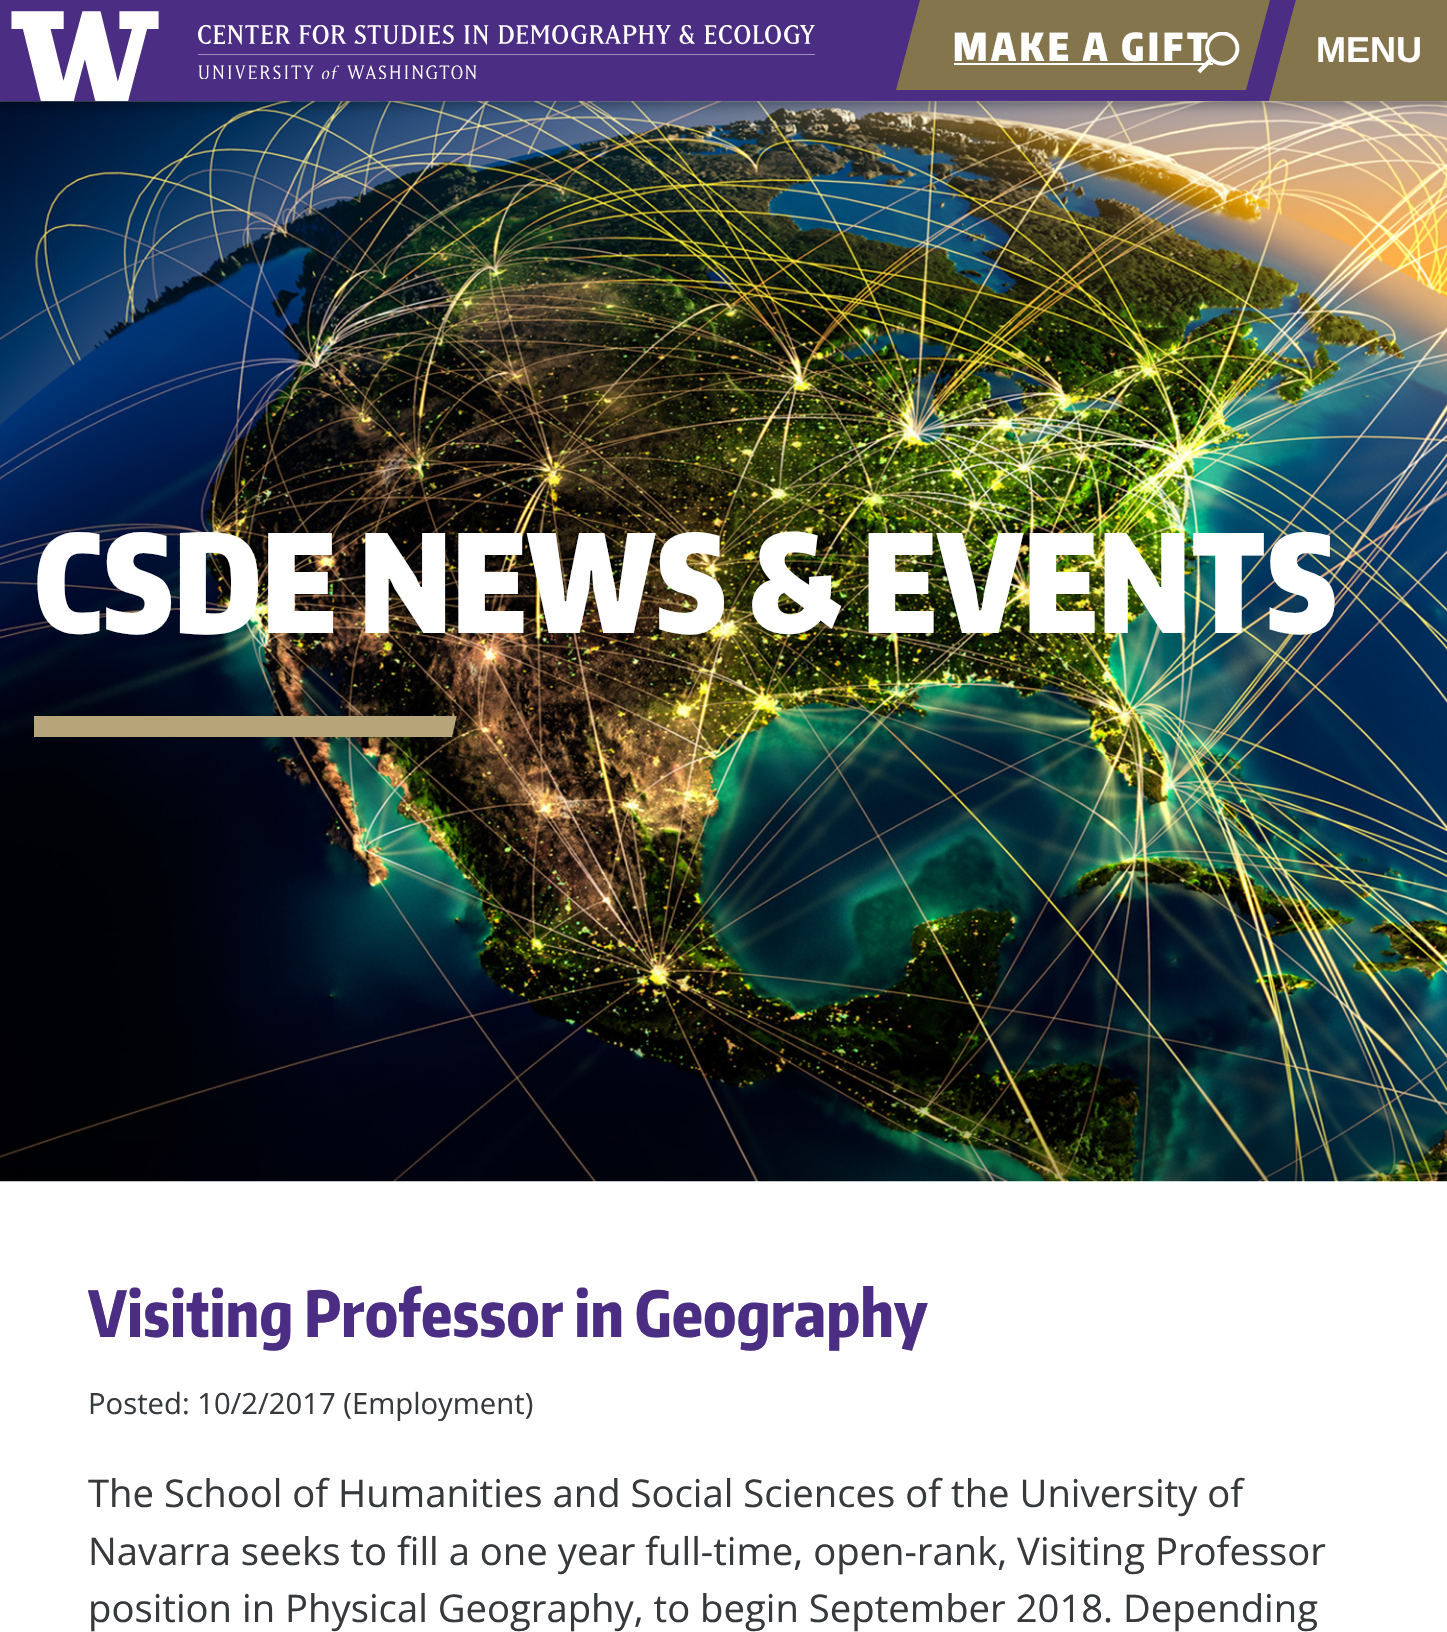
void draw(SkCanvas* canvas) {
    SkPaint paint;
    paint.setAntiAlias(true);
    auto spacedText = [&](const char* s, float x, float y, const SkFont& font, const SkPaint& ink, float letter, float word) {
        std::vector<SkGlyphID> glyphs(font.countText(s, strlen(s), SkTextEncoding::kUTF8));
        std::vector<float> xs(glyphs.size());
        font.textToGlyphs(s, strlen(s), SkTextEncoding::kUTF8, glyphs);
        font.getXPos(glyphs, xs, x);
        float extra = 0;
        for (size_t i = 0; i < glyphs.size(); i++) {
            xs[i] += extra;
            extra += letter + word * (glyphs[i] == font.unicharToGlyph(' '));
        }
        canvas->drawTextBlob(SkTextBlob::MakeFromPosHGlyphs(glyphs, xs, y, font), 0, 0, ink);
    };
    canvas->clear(0xFFFFFFFF);
    canvas->drawImageRect(SkImages::DeferredFromEncodedData(SkData::MakeFromFileName("img4.png")), SkRect::MakeXYWH(0, 101, 1447, 1081), SkSamplingOptions());
    paint.setColor(0x4D000000);
    paint.setMaskFilter(SkMaskFilter::MakeBlur(kNormal_SkBlurStyle, 5.5f));
    canvas->drawRect(SkRect::MakeXYWH(0, 5, 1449, 101), paint);
    paint.setMaskFilter(nullptr);
    paint.setColor(0xFF4B2E83);
    canvas->drawRect(SkRect::MakeXYWH(0, 0, 1296, 101), paint);
    canvas->drawImageRect(SkImages::DeferredFromEncodedData(SkData::MakeFromFileName("img1.png")), SkRect::MakeXYWH(11, 11, 148, 90), SkSamplingOptions());
    canvas->drawImageRect(SkImages::DeferredFromEncodedData(SkData::MakeFromFileName("img2.png")), SkRect::MakeXYWH(198, 25, 617, 54), SkSamplingOptions());
    paint.setColor(0xFF85754D);
    canvas->drawPath(SkPathBuilder().moveTo(920, 0).lineTo(1270, 0).lineTo(1246, 90).lineTo(896, 90).close().detach(), paint);
    SkFont font1(fontMgr->matchFamilyStyle("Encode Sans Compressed", SkFontStyle(900, SkFontStyle::kNormal_Width, SkFontStyle::kUpright_Slant)), 38.25f);
    font1.setSubpixel(true);
    paint.setColor(0xFFFFFFFF);
    spacedText("MAKE A GIFT", 953, 61, font1, paint, 3.75f, 0);
    canvas->drawRect(SkRect::MakeXYWH(954, 63, 259, 2), paint);
    canvas->drawImageRect(SkImages::DeferredFromEncodedData(SkData::MakeFromFileName("img3.png")), SkRect::MakeXYWH(1197, 32, 43, 42), SkSamplingOptions());
    paint.setColor(0xFF85754D);
    canvas->drawRect(SkRect::MakeXYWH(1302, 0, 145, 101), paint);
    canvas->drawPath(SkPathBuilder().moveTo(1296, 0).lineTo(1330, 0).lineTo(1302, 101).lineTo(1269, 101).close().detach(), paint);
    canvas->drawPath(SkPathBuilder().moveTo(1296, 0).lineTo(1298, 0).lineTo(1271, 101).lineTo(1269, 101).close().detach(), paint);
    SkFont font2(fontMgr->matchFamilyStyle("Liberation Sans", SkFontStyle::Bold()), 36);
    font2.setSubpixel(true);
    paint.setColor(0xFFFFFFFF);
    canvas->drawString("MENU", 1316, 62, font2, paint);
    SkFont font3(fontMgr->matchFamilyStyle("Encode Sans Compressed", SkFontStyle(900, SkFontStyle::kNormal_Width, SkFontStyle::kUpright_Slant)), 135);
    font3.setSubpixel(true);
    canvas->drawString("CSDE NEWS & EVENTS", 34, 633, font3, paint);
    canvas->save();
    canvas->clipRect(SkRect::MakeXYWH(34, 716, 1381, 22));
    paint.setColor(0xFFB7A57A);
    canvas->drawPath(SkPathBuilder().moveTo(25, 715).lineTo(457, 715).lineTo(452, 737).lineTo(20, 737).close().detach(), paint);
    canvas->restore();
    SkFont font4(fontMgr->matchFamilyStyle("Encode Sans Compressed", SkFontStyle(800, SkFontStyle::kNormal_Width, SkFontStyle::kUpright_Slant)), 63);
    font4.setSubpixel(true);
    paint.setColor(0xFF4B2E83);
    canvas->drawString("Visiting Professor in Geography", 88, 1337, font4, paint);
    SkFont font5(fontMgr->matchFamilyStyle("Open Sans", SkFontStyle::Normal()), 29.25f);
    font5.setSubpixel(true);
    paint.setColor(0xFF373A3C);
    canvas->drawString("Posted: 10/2/2017 (Employment)", 88, 1414, font5, paint);
    SkFont font6(fontMgr->matchFamilyStyle("Open Sans", SkFontStyle::Normal()), 38.25f);
    font6.setSubpixel(true);
    canvas->drawString("The School of Humanities and Social Sciences of the University of", 88, 1507, font6, paint);
    canvas->drawString("Navarra seeks to fill a one year full-time, open-rank, Visiting Professor", 88, 1565, font6, paint);
    canvas->drawString("position in Physical Geography, to begin September 2018. Depending", 88, 1622, font6, paint);
}
